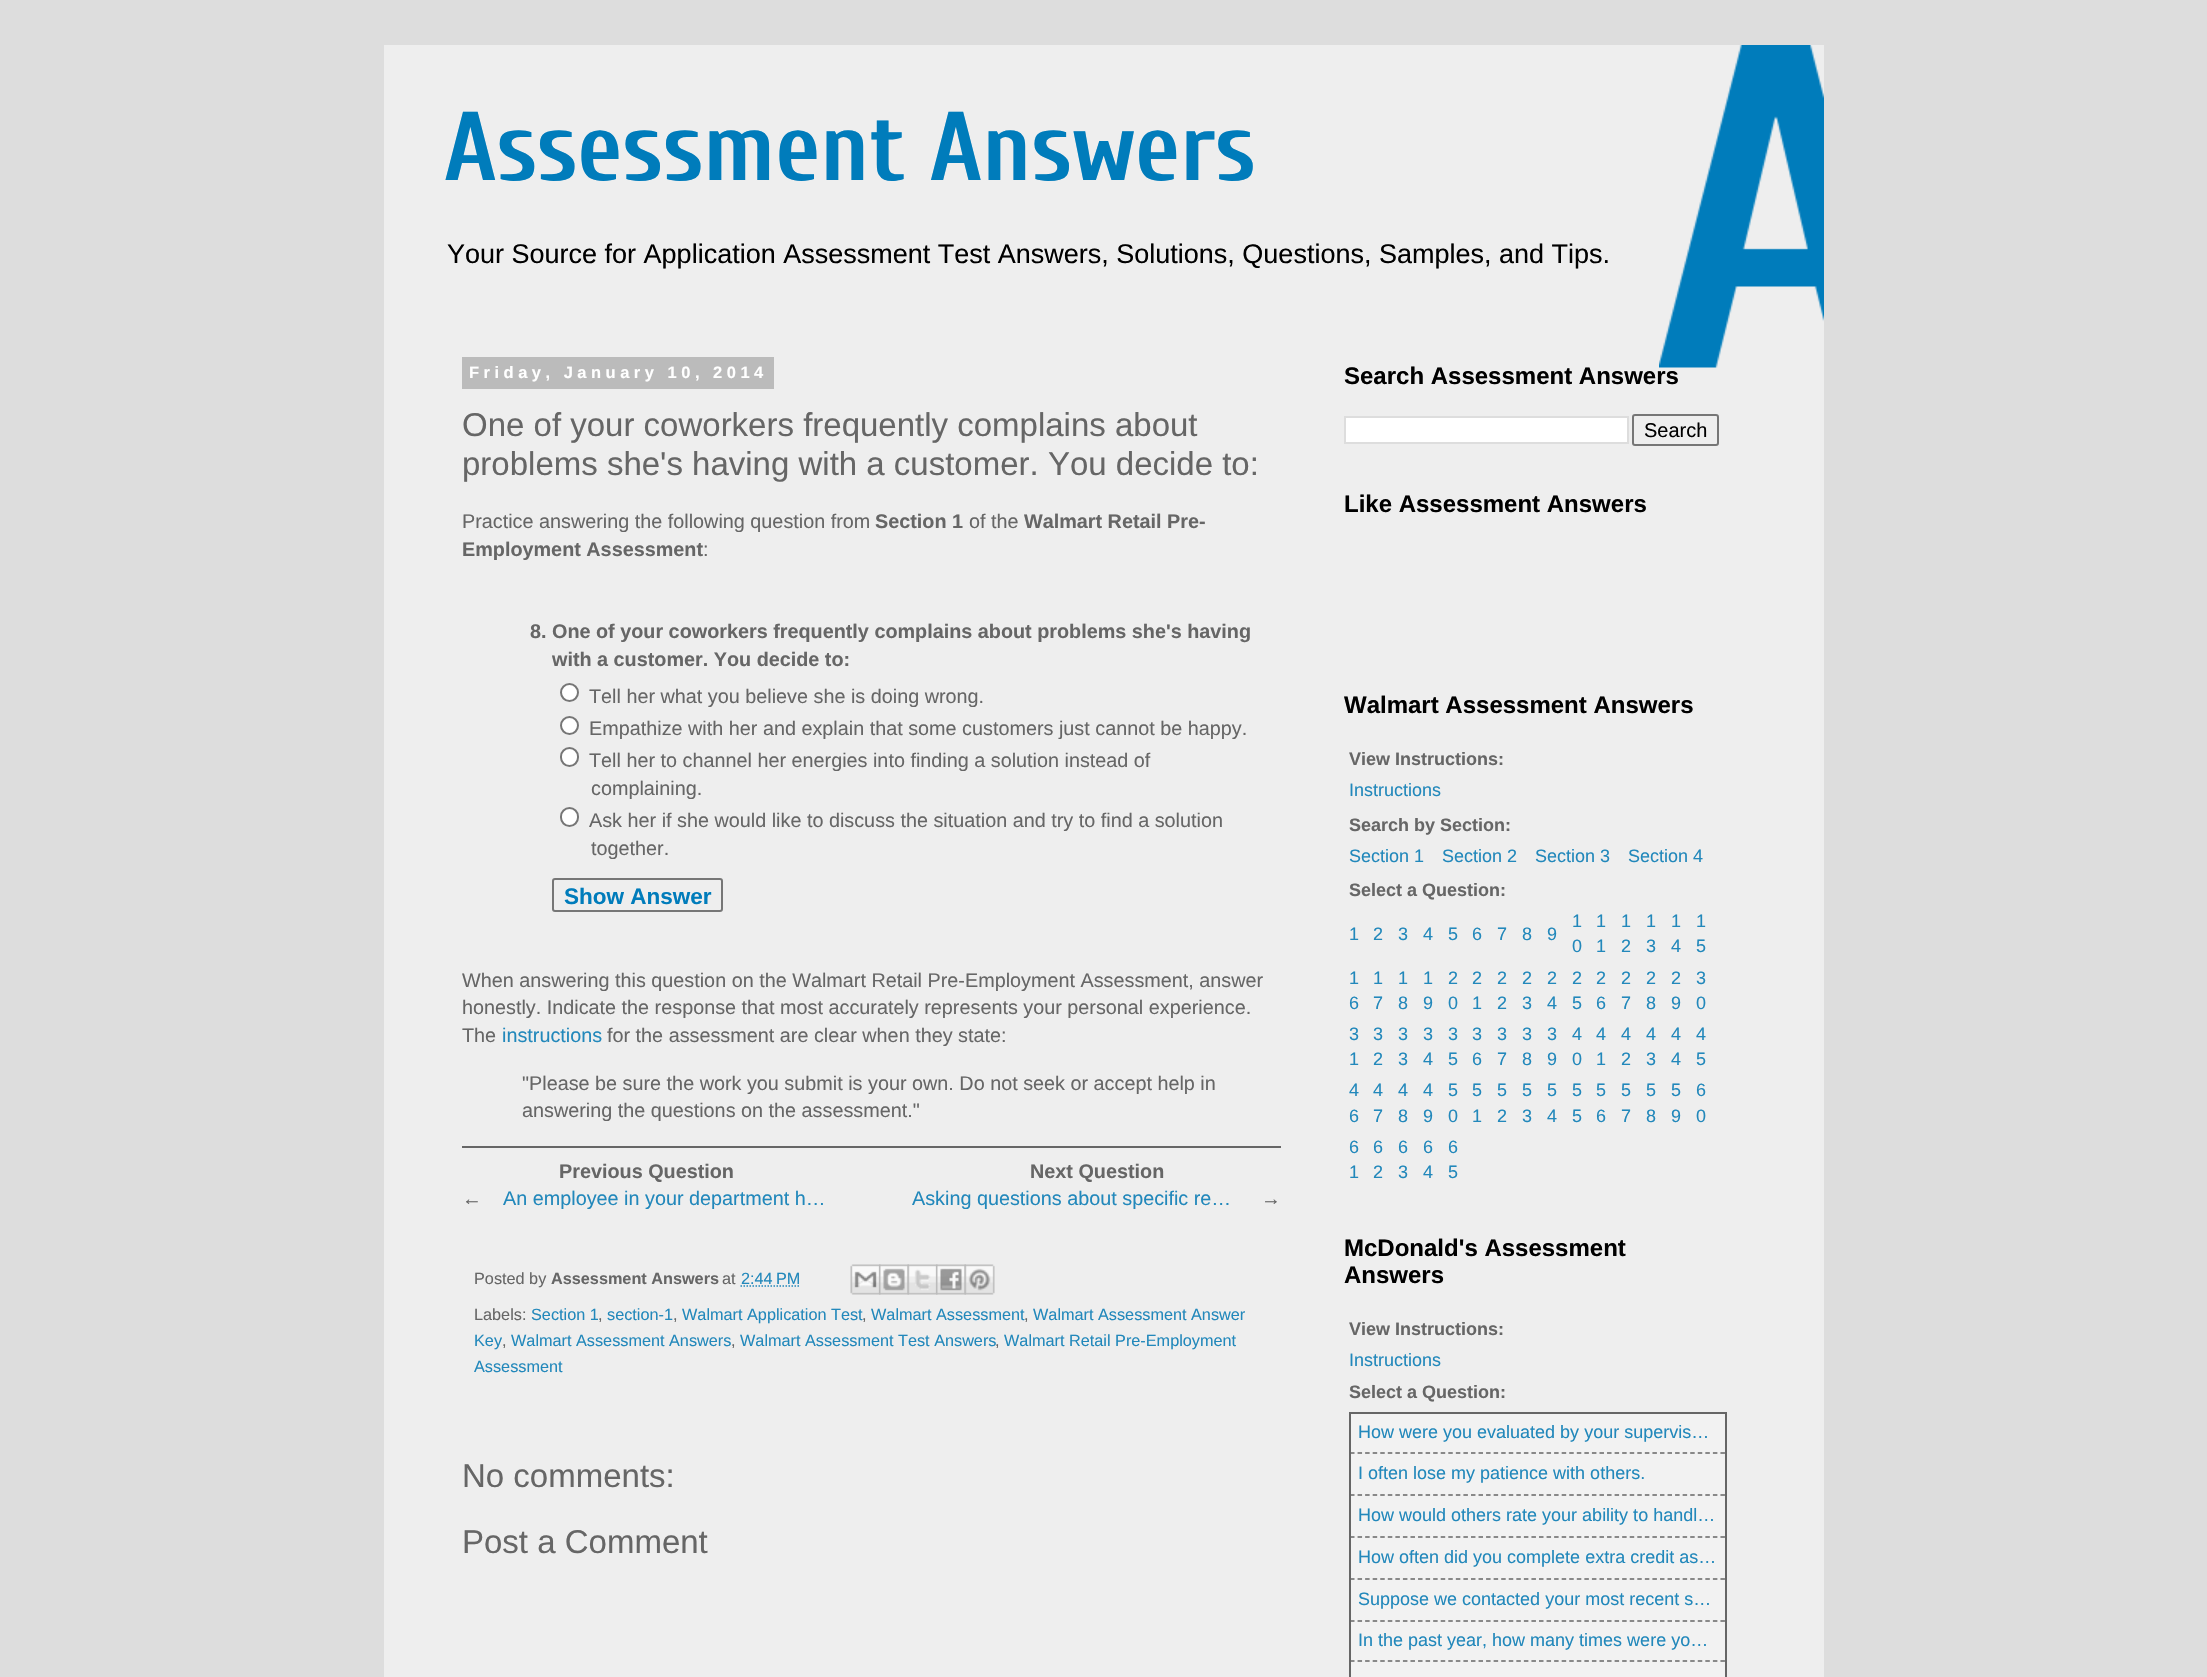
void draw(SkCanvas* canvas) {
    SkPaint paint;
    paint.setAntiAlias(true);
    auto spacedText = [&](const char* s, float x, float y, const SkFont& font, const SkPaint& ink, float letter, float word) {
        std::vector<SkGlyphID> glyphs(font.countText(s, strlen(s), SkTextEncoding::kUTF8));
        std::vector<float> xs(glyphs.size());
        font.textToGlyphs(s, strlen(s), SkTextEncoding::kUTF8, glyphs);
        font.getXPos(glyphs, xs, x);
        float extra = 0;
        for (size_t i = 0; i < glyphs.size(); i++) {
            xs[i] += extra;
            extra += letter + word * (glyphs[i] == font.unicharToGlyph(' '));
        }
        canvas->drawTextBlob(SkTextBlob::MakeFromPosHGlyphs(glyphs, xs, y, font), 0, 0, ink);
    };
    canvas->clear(0xFFDDDDDD);
    paint.setColor(0xFFEEEEEE);
    canvas->drawRect(SkRect::MakeXYWH(384, 45, 1440, 1632), paint);
    SkFont font1(fontMgr->matchFamilyStyle("Cuprum", SkFontStyle::Bold()), 97.5f);
    font1.setSubpixel(true);
    paint.setColor(0xFF007CBB);
    canvas->drawString("Assessment Answers", 444, 180, font1, paint);
    SkFont font2(fontMgr->matchFamilyStyle("Liberation Sans", SkFontStyle::Normal()), 27);
    font2.setSubpixel(true);
    paint.setColor(0xFF000000);
    canvas->drawString("Your Source for Application Assessment Test Answers, Solutions, Questions, Samples, and Tips.", 447, 263, font2, paint);
    paint.setColor(0xFFBBBBBB);
    canvas->drawRect(SkRect::MakeXYWH(462, 357, 312, 32), paint);
    SkFont font3(fontMgr->matchFamilyStyle("Liberation Sans", SkFontStyle::Bold()), 16.5f);
    font3.setSubpixel(true);
    paint.setColor(0xFFFFFFFF);
    spacedText("Friday, January 10, 2014", 469, 378, font3, paint, 4.5f, 0);
    SkFont font4(fontMgr->matchFamilyStyle("Liberation Sans", SkFontStyle::Normal()), 33);
    font4.setSubpixel(true);
    paint.setColor(0xFF666666);
    canvas->drawString("One of your coworkers frequently complains about", 462, 436, font4, paint);
    canvas->drawString("problems she's having with a customer. You decide to:", 462, 475, font4, paint);
    SkFont font5(fontMgr->matchFamilyStyle("Liberation Sans", SkFontStyle::Normal()), 19.8f);
    font5.setSubpixel(true);
    canvas->drawString("Practice answering the following question from", 462, 528, font5, paint);
    SkFont font6(fontMgr->matchFamilyStyle("Liberation Sans", SkFontStyle::Bold()), 19.8f);
    font6.setSubpixel(true);
    canvas->drawString("Section 1", 875, 528, font6, paint);
    canvas->drawString("of the", 969, 528, font5, paint);
    canvas->drawString("Walmart Retail Pre-", 1024, 528, font6, paint);
    canvas->drawString("Employment Assessment", 462, 556, font6, paint);
    canvas->drawString(":", 703, 556, font5, paint);
    canvas->drawString("8. One of your coworkers frequently complains about problems she's having", 530, 638, font6, paint);
    canvas->drawString("with a customer. You decide to:", 552, 666, font6, paint);
    paint.setColor(0xFFFFFFFF);
    canvas->drawCircle(569.5f, 692.5f, 8.5f, paint);
    paint.setStyle(SkPaint::kStroke_Style);
    paint.setStrokeWidth(2);
    paint.setColor(0xFF767676);
    canvas->drawCircle(569.5f, 692.5f, 8.5f, paint);
    paint.setStyle(SkPaint::kFill_Style);
    paint.setColor(0xFF666666);
    canvas->drawString("Tell her what you believe she is doing wrong.", 589, 703, font5, paint);
    paint.setColor(0xFFFFFFFF);
    canvas->drawCircle(569.5f, 725.5f, 8.5f, paint);
    paint.setStyle(SkPaint::kStroke_Style);
    paint.setColor(0xFF767676);
    canvas->drawCircle(569.5f, 725.5f, 8.5f, paint);
    paint.setStyle(SkPaint::kFill_Style);
    paint.setColor(0xFF666666);
    canvas->drawString("Empathize with her and explain that some customers just cannot be happy.", 589, 735, font5, paint);
    paint.setColor(0xFFFFFFFF);
    canvas->drawRoundRect(SkRect::MakeXYWH(561, 748, 17, 18), 8.5f, 8.5f, paint);
    paint.setStyle(SkPaint::kStroke_Style);
    paint.setColor(0xFF767676);
    canvas->drawRoundRect(SkRect::MakeXYWH(561, 748, 17, 18), 8.5f, 8.5f, paint);
    paint.setStyle(SkPaint::kFill_Style);
    paint.setColor(0xFF666666);
    canvas->drawString("Tell her to channel her energies into finding a solution instead of", 589, 767, font5, paint);
    canvas->drawString("complaining.", 591, 795, font5, paint);
    paint.setColor(0xFFFFFFFF);
    canvas->drawRoundRect(SkRect::MakeXYWH(561, 808, 17, 18), 8.5f, 8.5f, paint);
    paint.setStyle(SkPaint::kStroke_Style);
    paint.setColor(0xFF767676);
    canvas->drawRoundRect(SkRect::MakeXYWH(561, 808, 17, 18), 8.5f, 8.5f, paint);
    paint.setStyle(SkPaint::kFill_Style);
    paint.setColor(0xFF666666);
    canvas->drawString("Ask her if she would like to discuss the situation and try to find a solution", 589, 827, font5, paint);
    canvas->drawString("together.", 591, 855, font5, paint);
    paint.setStyle(SkPaint::kStroke_Style);
    paint.setColor(0xFF767676);
    canvas->drawRoundRect(SkRect::MakeXYWH(553, 879, 169, 32), 2, 2, paint);
    SkFont font7(fontMgr->matchFamilyStyle("Liberation Sans", SkFontStyle::Bold()), 22.5f);
    font7.setSubpixel(true);
    paint.setStyle(SkPaint::kFill_Style);
    paint.setColor(0xFF007CBB);
    canvas->drawString("Show Answer", 564, 904, font7, paint);
    paint.setColor(0xFF666666);
    canvas->drawString("When answering this question on the Walmart Retail Pre-Employment Assessment, answer", 462, 987, font5, paint);
    canvas->drawString("honestly. Indicate the response that most accurately represents your personal experience.", 462, 1014, font5, paint);
    canvas->drawString("The", 462, 1042, font5, paint);
    paint.setColor(0xFF2288BB);
    canvas->drawString("instructions", 502, 1042, font5, paint);
    paint.setColor(0xFF666666);
    canvas->drawString("for the assessment are clear when they state:", 607, 1042, font5, paint);
    canvas->drawString("\"Please be sure the work you submit is your own. Do not seek or accept help in", 522, 1090, font5, paint);
    canvas->drawString("answering the questions on the assessment.\"", 522, 1117, font5, paint);
    canvas->drawRect(SkRect::MakeXYWH(462, 1146, 819, 2), paint);
    canvas->drawString("Previous Question", 559, 1178, font6, paint);
    canvas->drawString("Next Question", 1030, 1178, font6, paint);
    canvas->drawString("←", 462, 1205, font5, paint);
    paint.setColor(0xFF2288BB);
    canvas->drawString("An employee in your department h…", 503, 1205, font5, paint);
    canvas->drawString("Asking questions about specific re…", 912, 1205, font5, paint);
    paint.setColor(0xFF666666);
    canvas->drawString("→", 1261, 1205, font5, paint);
    SkFont font8(fontMgr->matchFamilyStyle("Liberation Sans", SkFontStyle::Normal()), 16.25f);
    font8.setSubpixel(true);
    canvas->drawString("Posted by", 474, 1284, font8, paint);
    SkFont font9(fontMgr->matchFamilyStyle("Liberation Sans", SkFontStyle::Bold()), 16.25f);
    font9.setSubpixel(true);
    canvas->drawString("Assessment Answers", 551, 1284, font9, paint);
    canvas->drawString("at", 722, 1284, font8, paint);
    paint.setColor(0xFF2288BB);
    canvas->drawString("2:44 PM", 741, 1284, font8, paint);
    paint.setStyle(SkPaint::kStroke_Style);
    paint.setStrokeWidth(1.5f);
    paint.setPathEffect(SkDashPathEffect::Make({{1.5f, 1.5f}}, 0));
    canvas->drawPath(SkPathBuilder().moveTo(740.5f, 1286).lineTo(799.5f, 1286).detach(), paint);
    paint.setPathEffect(nullptr);
    canvas->drawImageRect(SkImages::DeferredFromEncodedData(SkData::MakeFromFileName("img1.png")), SkRect::MakeXYWH(850, 1264, 31, 31), SkSamplingOptions());
    canvas->drawImageRect(SkImages::DeferredFromEncodedData(SkData::MakeFromFileName("img2.png")), SkRect::MakeXYWH(879, 1264, 30, 31), SkSamplingOptions());
    canvas->drawImageRect(SkImages::DeferredFromEncodedData(SkData::MakeFromFileName("img3.png")), SkRect::MakeXYWH(907, 1264, 31, 31), SkSamplingOptions());
    canvas->drawImageRect(SkImages::DeferredFromEncodedData(SkData::MakeFromFileName("img4.png")), SkRect::MakeXYWH(936, 1264, 30, 31), SkSamplingOptions());
    canvas->drawImageRect(SkImages::DeferredFromEncodedData(SkData::MakeFromFileName("img5.png")), SkRect::MakeXYWH(964, 1264, 31, 31), SkSamplingOptions());
    paint.setStyle(SkPaint::kFill_Style);
    paint.setColor(0xFF666666);
    canvas->drawString("Labels:", 474, 1320, font8, paint);
    paint.setColor(0xFF2288BB);
    canvas->drawString("Section 1", 531, 1320, font8, paint);
    paint.setColor(0xFF666666);
    canvas->drawString(",", 598, 1320, font8, paint);
    paint.setColor(0xFF2288BB);
    canvas->drawString("section-1", 607, 1320, font8, paint);
    paint.setColor(0xFF666666);
    canvas->drawString(",", 673, 1320, font8, paint);
    paint.setColor(0xFF2288BB);
    canvas->drawString("Walmart Application Test", 682, 1320, font8, paint);
    paint.setColor(0xFF666666);
    canvas->drawString(",", 862, 1320, font8, paint);
    paint.setColor(0xFF2288BB);
    canvas->drawString("Walmart Assessment", 871, 1320, font8, paint);
    paint.setColor(0xFF666666);
    canvas->drawString(",", 1024, 1320, font8, paint);
    paint.setColor(0xFF2288BB);
    canvas->drawString("Walmart Assessment Answer", 1033, 1320, font8, paint);
    canvas->drawString("Key", 474, 1346, font8, paint);
    paint.setColor(0xFF666666);
    canvas->drawString(",", 502, 1346, font8, paint);
    paint.setColor(0xFF2288BB);
    canvas->drawString("Walmart Assessment Answers", 511, 1346, font8, paint);
    paint.setColor(0xFF666666);
    canvas->drawString(",", 731, 1346, font8, paint);
    paint.setColor(0xFF2288BB);
    canvas->drawString("Walmart Assessment Test Answers", 740, 1346, font8, paint);
    paint.setColor(0xFF666666);
    canvas->drawString(",", 995, 1346, font8, paint);
    paint.setColor(0xFF2288BB);
    canvas->drawString("Walmart Retail Pre-Employment", 1004, 1346, font8, paint);
    canvas->drawString("Assessment", 474, 1372, font8, paint);
    paint.setColor(0xFF666666);
    canvas->drawString("No comments:", 462, 1487, font4, paint);
    canvas->drawString("Post a Comment", 462, 1553, font4, paint);
    SkFont font10(fontMgr->matchFamilyStyle("Liberation Sans", SkFontStyle::Bold()), 24);
    font10.setSubpixel(true);
    paint.setColor(0xFF000000);
    canvas->drawString("Search Assessment Answers", 1344, 384, font10, paint);
    paint.setColor(0xFFFFFFFF);
    canvas->drawRect(SkRect::MakeXYWH(1345, 417, 283, 26), paint);
    paint.setStyle(SkPaint::kStroke_Style);
    paint.setStrokeWidth(2);
    paint.setColor(0xFFDDDDDD);
    canvas->drawRect(SkRect::MakeXYWH(1345, 417, 283, 26), paint);
    paint.setColor(0xFF767676);
    canvas->drawRoundRect(SkRect::MakeXYWH(1633, 415, 85, 30), 2, 2, paint);
    SkFont font11(fontMgr->matchFamilyStyle("Liberation Sans", SkFontStyle::Normal()), 20);
    font11.setSubpixel(true);
    paint.setStyle(SkPaint::kFill_Style);
    paint.setColor(0xFF000000);
    canvas->drawString("Search", 1644, 437, font11, paint);
    canvas->drawString("Like Assessment Answers", 1344, 512, font10, paint);
    canvas->drawString("Walmart Assessment Answers", 1344, 713, font10, paint);
    SkFont font12(fontMgr->matchFamilyStyle("Liberation Sans", SkFontStyle::Bold()), 18);
    font12.setSubpixel(true);
    paint.setColor(0xFF666666);
    canvas->drawString("View Instructions:", 1349, 765, font12, paint);
    SkFont font13(fontMgr->matchFamilyStyle("Liberation Sans", SkFontStyle::Normal()), 18);
    font13.setSubpixel(true);
    paint.setColor(0xFF2288BB);
    canvas->drawString("Instructions", 1349, 796, font13, paint);
    paint.setColor(0xFF666666);
    canvas->drawString("Search by Section:", 1349, 831, font12, paint);
    paint.setColor(0xFF2288BB);
    canvas->drawString("Section 1", 1349, 862, font13, paint);
    canvas->drawString("Section 2", 1442, 862, font13, paint);
    canvas->drawString("Section 3", 1535, 862, font13, paint);
    canvas->drawString("Section 4", 1628, 862, font13, paint);
    paint.setColor(0xFF666666);
    canvas->drawString("Select a Question:", 1349, 896, font12, paint);
    paint.setColor(0xFF2288BB);
    canvas->drawString("1", 1349, 940, font13, paint);
    canvas->drawString("2", 1373, 940, font13, paint);
    canvas->drawString("3", 1398, 940, font13, paint);
    canvas->drawString("4", 1423, 940, font13, paint);
    canvas->drawString("5", 1448, 940, font13, paint);
    canvas->drawString("6", 1472, 940, font13, paint);
    canvas->drawString("7", 1497, 940, font13, paint);
    canvas->drawString("8", 1522, 940, font13, paint);
    canvas->drawString("9", 1547, 940, font13, paint);
    canvas->drawString("1", 1572, 927, font13, paint);
    canvas->drawString("0", 1572, 952, font13, paint);
    canvas->drawString("1", 1596, 927, font13, paint);
    canvas->drawString("1", 1596, 952, font13, paint);
    canvas->drawString("1", 1621, 927, font13, paint);
    canvas->drawString("2", 1621, 952, font13, paint);
    canvas->drawString("1", 1646, 927, font13, paint);
    canvas->drawString("3", 1646, 952, font13, paint);
    canvas->drawString("1", 1671, 927, font13, paint);
    canvas->drawString("4", 1671, 952, font13, paint);
    canvas->drawString("1", 1696, 927, font13, paint);
    canvas->drawString("5", 1696, 952, font13, paint);
    canvas->drawString("1", 1349, 984, font13, paint);
    canvas->drawString("6", 1349, 1009, font13, paint);
    canvas->drawString("1", 1373, 984, font13, paint);
    canvas->drawString("7", 1373, 1009, font13, paint);
    canvas->drawString("1", 1398, 984, font13, paint);
    canvas->drawString("8", 1398, 1009, font13, paint);
    canvas->drawString("1", 1423, 984, font13, paint);
    canvas->drawString("9", 1423, 1009, font13, paint);
    canvas->drawString("2", 1448, 984, font13, paint);
    canvas->drawString("0", 1448, 1009, font13, paint);
    canvas->drawString("2", 1472, 984, font13, paint);
    canvas->drawString("1", 1472, 1009, font13, paint);
    canvas->drawString("2", 1497, 984, font13, paint);
    canvas->drawString("2", 1497, 1009, font13, paint);
    canvas->drawString("2", 1522, 984, font13, paint);
    canvas->drawString("3", 1522, 1009, font13, paint);
    canvas->drawString("2", 1547, 984, font13, paint);
    canvas->drawString("4", 1547, 1009, font13, paint);
    canvas->drawString("2", 1572, 984, font13, paint);
    canvas->drawString("5", 1572, 1009, font13, paint);
    canvas->drawString("2", 1596, 984, font13, paint);
    canvas->drawString("6", 1596, 1009, font13, paint);
    canvas->drawString("2", 1621, 984, font13, paint);
    canvas->drawString("7", 1621, 1009, font13, paint);
    canvas->drawString("2", 1646, 984, font13, paint);
    canvas->drawString("8", 1646, 1009, font13, paint);
    canvas->drawString("2", 1671, 984, font13, paint);
    canvas->drawString("9", 1671, 1009, font13, paint);
    canvas->drawString("3", 1696, 984, font13, paint);
    canvas->drawString("0", 1696, 1009, font13, paint);
    canvas->drawString("3", 1349, 1040, font13, paint);
    canvas->drawString("1", 1349, 1065, font13, paint);
    canvas->drawString("3", 1373, 1040, font13, paint);
    canvas->drawString("2", 1373, 1065, font13, paint);
    canvas->drawString("3", 1398, 1040, font13, paint);
    canvas->drawString("3", 1398, 1065, font13, paint);
    canvas->drawString("3", 1423, 1040, font13, paint);
    canvas->drawString("4", 1423, 1065, font13, paint);
    canvas->drawString("3", 1448, 1040, font13, paint);
    canvas->drawString("5", 1448, 1065, font13, paint);
    canvas->drawString("3", 1472, 1040, font13, paint);
    canvas->drawString("6", 1472, 1065, font13, paint);
    canvas->drawString("3", 1497, 1040, font13, paint);
    canvas->drawString("7", 1497, 1065, font13, paint);
    canvas->drawString("3", 1522, 1040, font13, paint);
    canvas->drawString("8", 1522, 1065, font13, paint);
    canvas->drawString("3", 1547, 1040, font13, paint);
    canvas->drawString("9", 1547, 1065, font13, paint);
    canvas->drawString("4", 1572, 1040, font13, paint);
    canvas->drawString("0", 1572, 1065, font13, paint);
    canvas->drawString("4", 1596, 1040, font13, paint);
    canvas->drawString("1", 1596, 1065, font13, paint);
    canvas->drawString("4", 1621, 1040, font13, paint);
    canvas->drawString("2", 1621, 1065, font13, paint);
    canvas->drawString("4", 1646, 1040, font13, paint);
    canvas->drawString("3", 1646, 1065, font13, paint);
    canvas->drawString("4", 1671, 1040, font13, paint);
    canvas->drawString("4", 1671, 1065, font13, paint);
    canvas->drawString("4", 1696, 1040, font13, paint);
    canvas->drawString("5", 1696, 1065, font13, paint);
    canvas->drawString("4", 1349, 1096, font13, paint);
    canvas->drawString("6", 1349, 1122, font13, paint);
    canvas->drawString("4", 1373, 1096, font13, paint);
    canvas->drawString("7", 1373, 1122, font13, paint);
    canvas->drawString("4", 1398, 1096, font13, paint);
    canvas->drawString("8", 1398, 1122, font13, paint);
    canvas->drawString("4", 1423, 1096, font13, paint);
    canvas->drawString("9", 1423, 1122, font13, paint);
    canvas->drawString("5", 1448, 1096, font13, paint);
    canvas->drawString("0", 1448, 1122, font13, paint);
    canvas->drawString("5", 1472, 1096, font13, paint);
    canvas->drawString("1", 1472, 1122, font13, paint);
    canvas->drawString("5", 1497, 1096, font13, paint);
    canvas->drawString("2", 1497, 1122, font13, paint);
    canvas->drawString("5", 1522, 1096, font13, paint);
    canvas->drawString("3", 1522, 1122, font13, paint);
    canvas->drawString("5", 1547, 1096, font13, paint);
    canvas->drawString("4", 1547, 1122, font13, paint);
    canvas->drawString("5", 1572, 1096, font13, paint);
    canvas->drawString("5", 1572, 1122, font13, paint);
    canvas->drawString("5", 1596, 1096, font13, paint);
    canvas->drawString("6", 1596, 1122, font13, paint);
    canvas->drawString("5", 1621, 1096, font13, paint);
    canvas->drawString("7", 1621, 1122, font13, paint);
    canvas->drawString("5", 1646, 1096, font13, paint);
    canvas->drawString("8", 1646, 1122, font13, paint);
    canvas->drawString("5", 1671, 1096, font13, paint);
    canvas->drawString("9", 1671, 1122, font13, paint);
    canvas->drawString("6", 1696, 1096, font13, paint);
    canvas->drawString("0", 1696, 1122, font13, paint);
    canvas->drawString("6", 1349, 1153, font13, paint);
    canvas->drawString("1", 1349, 1178, font13, paint);
    canvas->drawString("6", 1373, 1153, font13, paint);
    canvas->drawString("2", 1373, 1178, font13, paint);
    canvas->drawString("6", 1398, 1153, font13, paint);
    canvas->drawString("3", 1398, 1178, font13, paint);
    canvas->drawString("6", 1423, 1153, font13, paint);
    canvas->drawString("4", 1423, 1178, font13, paint);
    canvas->drawString("6", 1448, 1153, font13, paint);
    canvas->drawString("5", 1448, 1178, font13, paint);
    paint.setColor(0xFF000000);
    canvas->drawString("McDonald's Assessment", 1344, 1256, font10, paint);
    canvas->drawString("Answers", 1344, 1283, font10, paint);
    paint.setColor(0xFF666666);
    canvas->drawString("View Instructions:", 1349, 1335, font12, paint);
    paint.setColor(0xFF2288BB);
    canvas->drawString("Instructions", 1349, 1366, font13, paint);
    paint.setColor(0xFF666666);
    canvas->drawString("Select a Question:", 1349, 1398, font12, paint);
    paint.setColor(0xFFF2F2F2);
    canvas->drawRect(SkRect::MakeXYWH(1350, 1413, 376, 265), paint);
    paint.setStyle(SkPaint::kStroke_Style);
    paint.setColor(0xFF666666);
    canvas->drawRect(SkRect::MakeXYWH(1350, 1413, 376, 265), paint);
    paint.setStyle(SkPaint::kFill_Style);
    paint.setColor(0xFF2288BB);
    canvas->drawString("How were you evaluated by your supervis…", 1358, 1438, font13, paint);
    paint.setStyle(SkPaint::kStroke_Style);
    paint.setStrokeWidth(1.5f);
    paint.setColor(0xFF666666);
    paint.setPathEffect(SkDashPathEffect::Make({{4.5f, 3.06f}}, 0));
    canvas->drawPath(SkPathBuilder().moveTo(1350, 1453).lineTo(1725, 1453).detach(), paint);
    paint.setPathEffect(nullptr);
    paint.setStyle(SkPaint::kFill_Style);
    paint.setColor(0xFF2288BB);
    canvas->drawString("I often lose my patience with others.", 1358, 1479, font13, paint);
    paint.setStyle(SkPaint::kStroke_Style);
    paint.setColor(0xFF666666);
    paint.setPathEffect(SkDashPathEffect::Make({{4.5f, 3.06f}}, 0));
    canvas->drawPath(SkPathBuilder().moveTo(1350, 1495).lineTo(1725, 1495).detach(), paint);
    paint.setPathEffect(nullptr);
    paint.setStyle(SkPaint::kFill_Style);
    paint.setColor(0xFF2288BB);
    canvas->drawString("How would others rate your ability to handl…", 1358, 1521, font13, paint);
    paint.setStyle(SkPaint::kStroke_Style);
    paint.setColor(0xFF666666);
    paint.setPathEffect(SkDashPathEffect::Make({{4.5f, 3.06f}}, 0));
    canvas->drawPath(SkPathBuilder().moveTo(1350, 1537).lineTo(1725, 1537).detach(), paint);
    paint.setPathEffect(nullptr);
    paint.setStyle(SkPaint::kFill_Style);
    paint.setColor(0xFF2288BB);
    canvas->drawString("How often did you complete extra credit as…", 1358, 1563, font13, paint);
    paint.setStyle(SkPaint::kStroke_Style);
    paint.setColor(0xFF666666);
    paint.setPathEffect(SkDashPathEffect::Make({{4.5f, 3.06f}}, 0));
    canvas->drawPath(SkPathBuilder().moveTo(1350, 1579).lineTo(1725, 1579).detach(), paint);
    paint.setPathEffect(nullptr);
    paint.setStyle(SkPaint::kFill_Style);
    paint.setColor(0xFF2288BB);
    canvas->drawString("Suppose we contacted your most recent s…", 1358, 1605, font13, paint);
    paint.setStyle(SkPaint::kStroke_Style);
    paint.setColor(0xFF666666);
    paint.setPathEffect(SkDashPathEffect::Make({{4.5f, 3.06f}}, 0));
    canvas->drawPath(SkPathBuilder().moveTo(1350, 1621).lineTo(1725, 1621).detach(), paint);
    paint.setPathEffect(nullptr);
    paint.setStyle(SkPaint::kFill_Style);
    paint.setColor(0xFF2288BB);
    canvas->drawString("In the past year, how many times were yo…", 1358, 1646, font13, paint);
    paint.setStyle(SkPaint::kStroke_Style);
    paint.setColor(0xFF666666);
    paint.setPathEffect(SkDashPathEffect::Make({{4.5f, 3.06f}}, 0));
    canvas->drawPath(SkPathBuilder().moveTo(1350, 1661).lineTo(1725, 1661).detach(), paint);
    paint.setPathEffect(nullptr);
    canvas->drawImageRect(SkImages::DeferredFromEncodedData(SkData::MakeFromFileName("img6.png")), SkRect::MakeXYWH(1659, 45, 165, 323), SkSamplingOptions());
}
